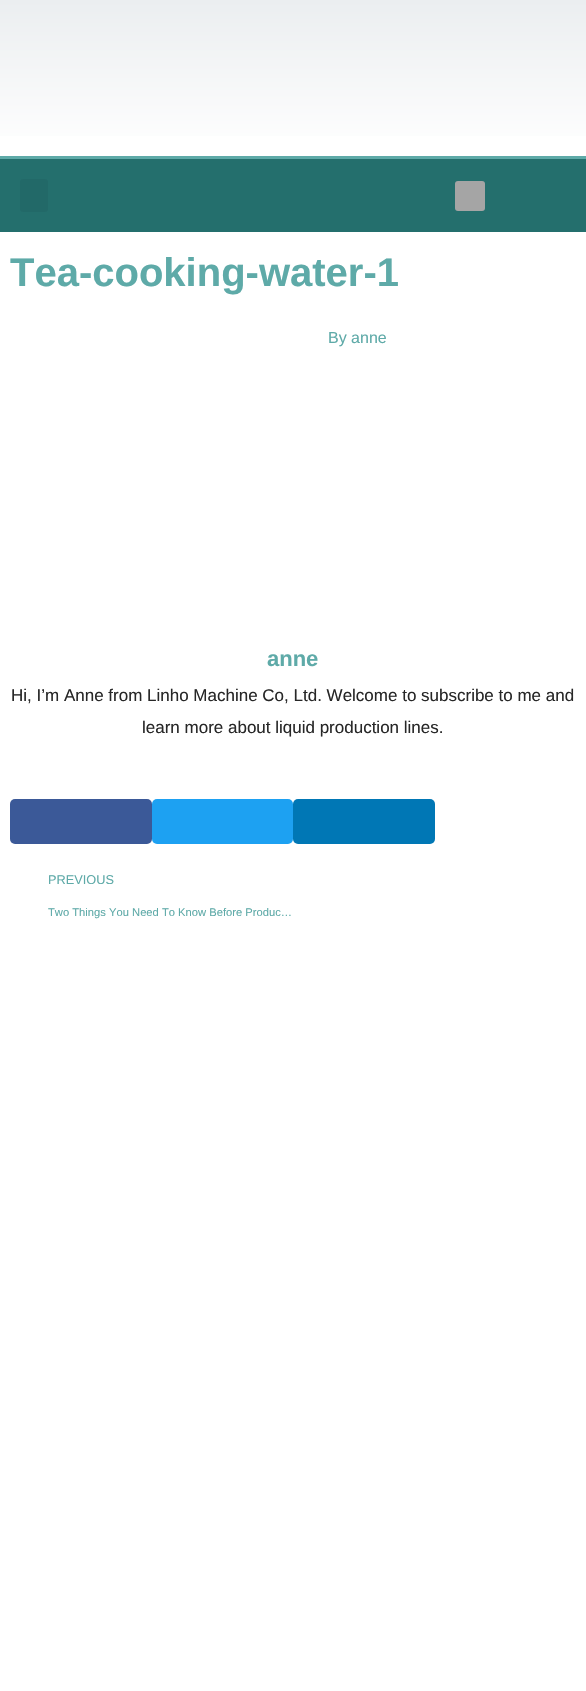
void draw(SkCanvas* canvas) {
    SkPaint paint;
    paint.setAntiAlias(true);
    canvas->clear(0xFFFFFFFF);
    {
        const SkColor colors[] = {0xFFEBEEF0, 0xFFFFFFFF};
        const float stops[] = {0, 1};
        const SkPoint ends[] = {{293, 0}, {293, 156}};
        paint.setShader(SkGradientShader::MakeLinear(ends, colors, stops, 2, SkTileMode::kClamp));
        paint.setAlpha(255);
    }
    canvas->drawRect(SkRect::MakeXYWH(0, 0, 586, 136), paint);
    paint.setShader(nullptr);
    paint.setColor(0xFF246F6D);
    canvas->drawRect(SkRect::MakeXYWH(0, 159, 586, 73), paint);
    paint.setColor(0xFF5EAAA8);
    canvas->drawRect(SkRect::MakeXYWH(0, 156, 586, 3), paint);
    paint.setColor(0xFF226968);
    canvas->drawRoundRect(SkRect::MakeXYWH(20, 179, 28, 33), 3, 3, paint);
    paint.setColor(0xFFA5A5A5);
    canvas->drawRoundRect(SkRect::MakeXYWH(455, 181, 30, 30), 3, 3, paint);
    SkFont font1(fontMgr->matchFamilyStyle("Liberation Sans", SkFontStyle::Bold()), 40);
    font1.setSubpixel(true);
    paint.setColor(0xFF5EAAA8);
    canvas->drawString("Tea-cooking-water-1", 10, 286, font1, paint);
    SkFont font2(fontMgr->matchFamilyStyle("Liberation Sans", SkFontStyle::Normal()), 16);
    font2.setSubpixel(true);
    canvas->drawString("By anne", 328, 343, font2, paint);
    SkFont font3(fontMgr->matchFamilyStyle("Liberation Sans", SkFontStyle::Bold()), 22);
    font3.setSubpixel(true);
    canvas->drawString("anne", 267, 666, font3, paint);
    SkFont font4(fontMgr->matchFamilyStyle("Liberation Sans", SkFontStyle::Normal()), 17);
    font4.setSubpixel(true);
    paint.setColor(0xFF272727);
    canvas->drawString("Hi, I’m Anne from Linho Machine Co, Ltd. Welcome to subscribe to me and", 11, 701, font4, paint);
    canvas->drawString("learn more about liquid production lines.", 142, 733, font4, paint);
    paint.setColor(0xFF3B5998);
    canvas->drawRoundRect(SkRect::MakeXYWH(10, 799, 142, 45), 5, 5, paint);
    paint.setColor(0xFF1DA1F2);
    canvas->drawRoundRect(SkRect::MakeXYWH(152, 799, 141, 45), 5, 5, paint);
    paint.setColor(0xFF0077B5);
    canvas->drawRoundRect(SkRect::MakeXYWH(293, 799, 142, 45), 5, 5, paint);
    SkFont font5(fontMgr->matchFamilyStyle("Liberation Sans", SkFontStyle::Normal()), 12.75f);
    font5.setSubpixel(true);
    paint.setColor(0xFF5EAAA8);
    canvas->drawString("PREVIOUS", 48, 884, font5, paint);
    SkFont font6(fontMgr->matchFamilyStyle("Liberation Sans", SkFontStyle::Normal()), 11.2f);
    font6.setSubpixel(true);
    canvas->drawString("Two Things You Need To Know Before Produc…", 48, 916, font6, paint);
}
